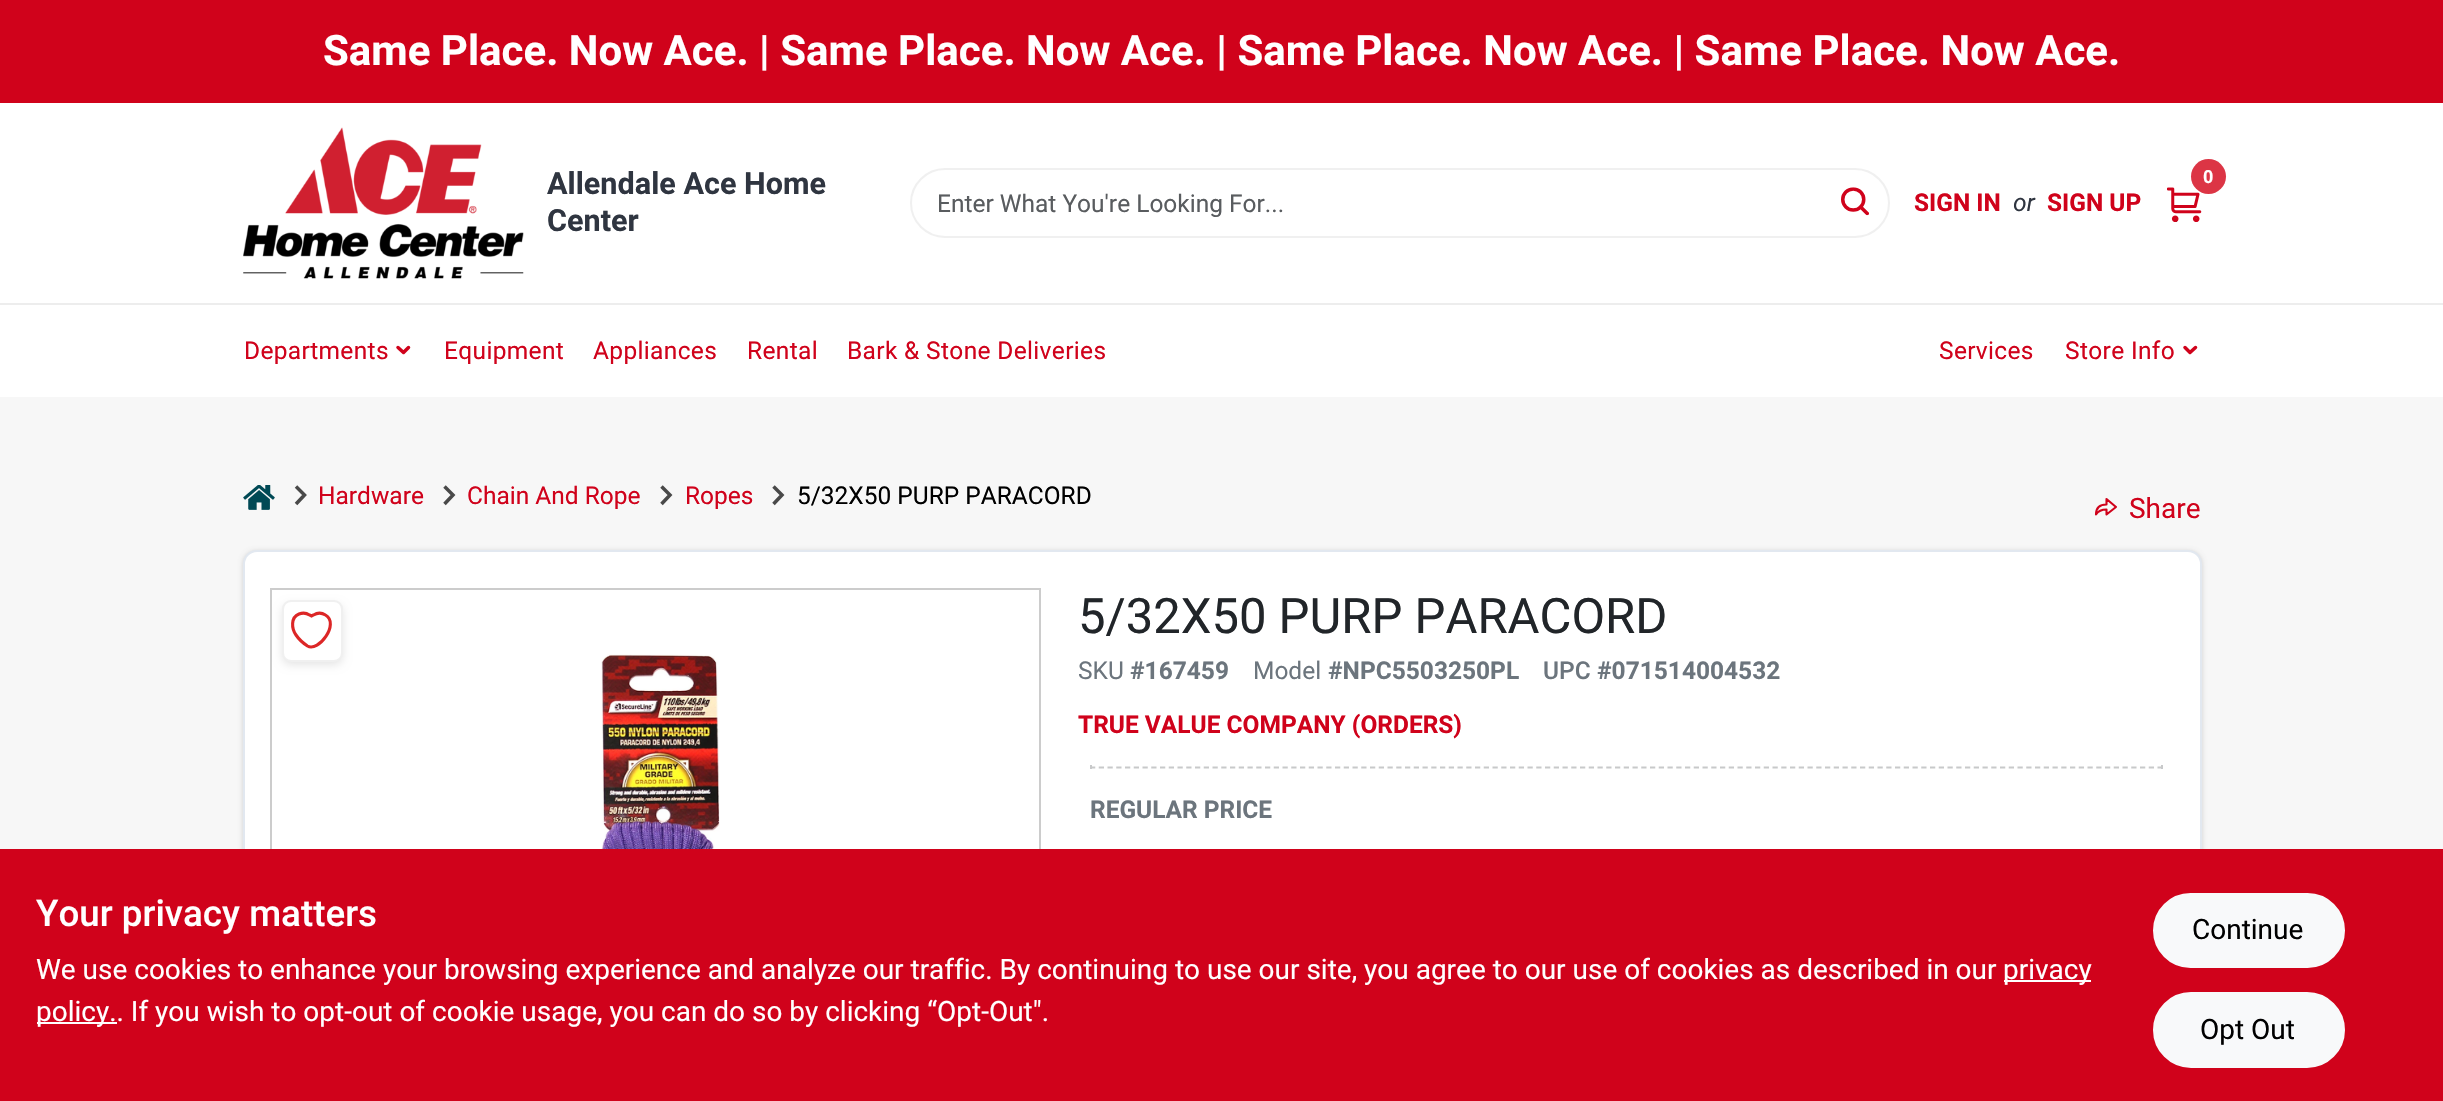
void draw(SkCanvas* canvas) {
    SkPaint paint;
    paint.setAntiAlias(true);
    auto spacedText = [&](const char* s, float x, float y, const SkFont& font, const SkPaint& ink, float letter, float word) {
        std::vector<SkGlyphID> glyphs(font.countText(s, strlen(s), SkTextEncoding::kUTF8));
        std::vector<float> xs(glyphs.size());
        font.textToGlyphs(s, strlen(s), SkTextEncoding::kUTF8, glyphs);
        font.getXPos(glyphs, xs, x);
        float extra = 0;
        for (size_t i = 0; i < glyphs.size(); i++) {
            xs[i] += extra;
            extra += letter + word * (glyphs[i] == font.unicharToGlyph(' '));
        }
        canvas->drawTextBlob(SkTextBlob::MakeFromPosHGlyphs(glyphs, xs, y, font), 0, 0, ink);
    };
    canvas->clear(0xFFF7F7F7);
    paint.setColor(0xFFD0021B);
    canvas->drawRect(SkRect::MakeXYWH(0, 0, 2443, 103), paint);
    SkFont font1(fontMgr->matchFamilyStyle("Roboto", SkFontStyle::Bold()), 42);
    font1.setSubpixel(true);
    paint.setColor(0xFFFFFFFF);
    canvas->drawString("Same Place. Now Ace. | Same Place. Now Ace. | Same Place. Now Ace. | Same Place. Now Ace.", 323, 65, font1, paint);
    canvas->drawRect(SkRect::MakeXYWH(0, 103, 2443, 200), paint);
    canvas->drawImageRect(SkImages::DeferredFromEncodedData(SkData::MakeFromFileName("img1.png")), SkRect::MakeXYWH(243, 127, 281, 152), SkSamplingOptions());
    SkFont font2(fontMgr->matchFamilyStyle("Roboto", SkFontStyle::Bold()), 30.6f);
    font2.setSubpixel(true);
    paint.setColor(0xFF2F3540);
    canvas->drawString("Allendale Ace Home", 547, 194, font2, paint);
    canvas->drawString("Center", 547, 231, font2, paint);
    paint.setStyle(SkPaint::kStroke_Style);
    paint.setStrokeWidth(2);
    paint.setColor(0xFFF0F0F0);
    canvas->drawRoundRect(SkRect::MakeXYWH(911, 169, 978, 68), 34, 34, paint);
    SkFont font3(fontMgr->matchFamilyStyle("Roboto", SkFontStyle::Normal()), 24.5f);
    font3.setSubpixel(true);
    paint.setStyle(SkPaint::kFill_Style);
    paint.setColor(0xFF595C5F);
    canvas->drawString("Enter What You're Looking For...", 937, 212, font3, paint);
    canvas->drawImageRect(SkImages::DeferredFromEncodedData(SkData::MakeFromFileName("img2.png")), SkRect::MakeXYWH(1841, 187, 28, 29), SkSamplingOptions());
    canvas->drawImageRect(SkImages::DeferredFromEncodedData(SkData::MakeFromFileName("img3.png")), SkRect::MakeXYWH(2167, 187, 35, 35), SkSamplingOptions());
    paint.setColor(0xFFDC3545);
    canvas->drawCircle(2208.5f, 176.5f, 17.5f, paint);
    SkFont font4(fontMgr->matchFamilyStyle("Roboto", SkFontStyle::Bold()), 18);
    font4.setSubpixel(true);
    paint.setColor(0xFFFFFFFF);
    spacedText("0", 2203, 183, font4, paint, -2, 0);
    SkFont font5(fontMgr->matchFamilyStyle("Roboto", SkFontStyle::Bold()), 24.5f);
    font5.setSubpixel(true);
    paint.setColor(0xFFD0021B);
    canvas->drawString("SIGN IN", 1914, 211, font5, paint);
    SkFont font6(fontMgr->matchFamilyStyle("Roboto", SkFontStyle::Italic()), 24.5f);
    font6.setSubpixel(true);
    paint.setColor(0xFF2F3540);
    canvas->drawString("or", 2013, 211, font6, paint);
    paint.setColor(0xFFD0021B);
    canvas->drawString("SIGN UP", 2047, 211, font5, paint);
    paint.setColor(0xFFFFFFFF);
    canvas->drawRect(SkRect::MakeXYWH(0, 305, 2443, 92), paint);
    paint.setColor(0xFFEDEDED);
    canvas->drawRect(SkRect::MakeXYWH(0, 303, 2443, 2), paint);
    paint.setColor(0xFFD0021B);
    spacedText("Departments", 244, 359, font3, paint, 0.35f, 0);
    paint.setStyle(SkPaint::kStroke_Style);
    paint.setStrokeWidth(3.5f);
    paint.setStrokeCap(SkPaint::kRound_Cap);
    paint.setStrokeJoin(SkPaint::kRound_Join);
    canvas->drawPath(SkPathBuilder().moveTo(408.5f, 347.5f).lineTo(403.5f, 352.5f).lineTo(398, 347.5f).detach(), paint);
    paint.setStyle(SkPaint::kFill_Style);
    spacedText("Equipment", 444, 359, font3, paint, 0.35f, 0);
    spacedText("Appliances", 593, 359, font3, paint, 0.35f, 0);
    spacedText("Rental", 747, 359, font3, paint, 0.35f, 0);
    spacedText("Bark & Stone Deliveries", 847, 359, font3, paint, 0.35f, 0);
    spacedText("Services", 1939, 359, font3, paint, 0.35f, 0);
    spacedText("Store Info", 2065, 359, font3, paint, 0.35f, 0);
    paint.setStyle(SkPaint::kStroke_Style);
    canvas->drawPath(SkPathBuilder().moveTo(2195.5f, 347.5f).lineTo(2190, 352.5f).lineTo(2185, 347.5f).detach(), paint);
    canvas->drawImageRect(SkImages::DeferredFromEncodedData(SkData::MakeFromFileName("img4.png")), SkRect::MakeXYWH(243, 485, 32, 25), SkSamplingOptions());
    paint.setStrokeCap(SkPaint::kButt_Cap);
    paint.setStrokeJoin(SkPaint::kMiter_Join);
    paint.setColor(0xFF494949);
    canvas->drawPath(SkPathBuilder().moveTo(296, 486.5f).lineTo(304.5f, 495).lineTo(296, 504).detach(), paint);
    paint.setStyle(SkPaint::kFill_Style);
    paint.setColor(0xFFD0021B);
    canvas->drawString("Hardware", 318, 504, font3, paint);
    paint.setStyle(SkPaint::kStroke_Style);
    paint.setColor(0xFF494949);
    canvas->drawPath(SkPathBuilder().moveTo(444.5f, 486.5f).lineTo(453, 495).lineTo(444.5f, 504).detach(), paint);
    paint.setStyle(SkPaint::kFill_Style);
    paint.setColor(0xFFD0021B);
    canvas->drawString("Chain And Rope", 467, 504, font3, paint);
    paint.setStyle(SkPaint::kStroke_Style);
    paint.setColor(0xFF494949);
    canvas->drawPath(SkPathBuilder().moveTo(661.5f, 486.5f).lineTo(670, 495).lineTo(661.5f, 504).detach(), paint);
    paint.setStyle(SkPaint::kFill_Style);
    paint.setColor(0xFFD0021B);
    canvas->drawString("Ropes", 685, 504, font3, paint);
    paint.setStyle(SkPaint::kStroke_Style);
    paint.setColor(0xFF494949);
    canvas->drawPath(SkPathBuilder().moveTo(773.5f, 486.5f).lineTo(782, 495).lineTo(773.5f, 504).detach(), paint);
    paint.setStyle(SkPaint::kFill_Style);
    paint.setColor(0xFF000000);
    canvas->drawString("5/32X50 PURP PARACORD", 797, 504, font3, paint);
    paint.setStyle(SkPaint::kStroke_Style);
    paint.setStrokeWidth(2.1f);
    paint.setStrokeCap(SkPaint::kRound_Cap);
    paint.setStrokeJoin(SkPaint::kRound_Join);
    paint.setColor(0xFFD0021B);
    canvas->drawPath(SkPathBuilder().moveTo(2116, 507).lineTo(2106.5f, 499).lineTo(2106.5f, 504.5f).cubicTo(2101.5f, 504.5f, 2096, 506, 2096, 514.5f).cubicTo(2098.5f, 510.5f, 2102.5f, 509.5f, 2106.5f, 509.5f).lineTo(2106.5f, 514.5f).close().detach(), paint);
    SkFont font7(fontMgr->matchFamilyStyle("Roboto", SkFontStyle::Normal()), 28);
    font7.setSubpixel(true);
    paint.setStyle(SkPaint::kFill_Style);
    canvas->drawString("Share", 2129, 518, font7, paint);
    paint.setColor(0x0F000000);
    paint.setMaskFilter(SkMaskFilter::MakeBlur(kNormal_SkBlurStyle, 2));
    canvas->drawRoundRect(SkRect::MakeXYWH(243, 551, 1959, 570), 14, 14, paint);
    paint.setMaskFilter(nullptr);
    paint.setColor(0x1A000000);
    paint.setMaskFilter(SkMaskFilter::MakeBlur(kNormal_SkBlurStyle, 2.5f));
    canvas->drawRoundRect(SkRect::MakeXYWH(243, 551, 1959, 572), 14, 14, paint);
    paint.setMaskFilter(nullptr);
    paint.setColor(0xFFFFFFFF);
    canvas->drawRoundRect(SkRect::MakeXYWH(244, 551, 1957, 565), 13, 13, paint);
    paint.setStyle(SkPaint::kStroke_Style);
    paint.setStrokeWidth(2);
    paint.setStrokeCap(SkPaint::kButt_Cap);
    paint.setStrokeJoin(SkPaint::kMiter_Join);
    paint.setColor(0xFFE2E8F0);
    canvas->drawRoundRect(SkRect::MakeXYWH(244, 551, 1957, 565), 13, 13, paint);
    paint.setColor(0xFFCCCCCC);
    canvas->drawRect(SkRect::MakeXYWH(271, 589, 769, 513), paint);
    paint.setStyle(SkPaint::kFill_Style);
    paint.setColor(0x1A000000);
    paint.setMaskFilter(SkMaskFilter::MakeBlur(kNormal_SkBlurStyle, 4.5f));
    canvas->drawRoundRect(SkRect::MakeXYWH(282, 604, 61, 61), 9, 9, paint);
    paint.setMaskFilter(nullptr);
    paint.setColor(0xFFFFFFFF);
    canvas->drawRoundRect(SkRect::MakeXYWH(283, 601, 59, 60), 8, 8, paint);
    paint.setStyle(SkPaint::kStroke_Style);
    paint.setColor(0xFFF0F0F0);
    canvas->drawRoundRect(SkRect::MakeXYWH(283, 601, 59, 60), 8, 8, paint);
    paint.setStrokeWidth(3.1f);
    paint.setStrokeCap(SkPaint::kRound_Cap);
    paint.setColor(0xFFDC2626);
    canvas->drawPath(SkPathBuilder().moveTo(325.5f, 615).cubicTo(321.5f, 612.5f, 317.5f, 612.5f, 313.5f, 615).lineTo(311.5f, 616).lineTo(309.5f, 615).cubicTo(306.5f, 613, 303, 612.5f, 299, 614).cubicTo(290.5f, 617.5f, 291.5f, 628.5f, 296, 635).cubicTo(299, 639.5f, 303, 643, 307.5f, 646).cubicTo(318.5f, 652.5f, 340, 623.5f, 325.5f, 615).close().detach(), paint);
    canvas->drawImageRect(SkImages::DeferredFromEncodedData(SkData::MakeFromFileName("img5.png")), SkRect::MakeXYWH(601, 654, 119, 195), SkSamplingOptions());
    SkFont font8(fontMgr->matchFamilyStyle("Roboto", SkFontStyle::Normal()), 49);
    font8.setSubpixel(true);
    paint.setStyle(SkPaint::kFill_Style);
    paint.setColor(0xFF212529);
    canvas->drawString("5/32X50 PURP PARACORD", 1078, 633, font8, paint);
    paint.setColor(0xFF6C757D);
    canvas->drawString("SKU", 1078, 679, font3, paint);
    canvas->drawString("#167459", 1130, 679, font5, paint);
    canvas->drawString("Model", 1253, 679, font3, paint);
    canvas->drawString("#NPC5503250PL", 1328, 679, font5, paint);
    SkFont font9(fontMgr->matchFamilyStyle("Roboto", SkFontStyle(500, SkFontStyle::kNormal_Width, SkFontStyle::kUpright_Slant)), 24.5f);
    font9.setSubpixel(true);
    canvas->drawString("UPC", 1543, 679, font9, paint);
    canvas->drawString("#071514004532", 1597, 679, font5, paint);
    paint.setColor(0xFFD0021B);
    canvas->drawString("TRUE VALUE COMPANY (ORDERS)", 1078, 733, font5, paint);
    paint.setColor(0xFFC8C9CA);
    canvas->drawRect(SkRect::MakeXYWH(2161, 765, 2, 4), paint);
    paint.setStyle(SkPaint::kStroke_Style);
    paint.setStrokeWidth(1.8f);
    paint.setStrokeCap(SkPaint::kButt_Cap);
    paint.setPathEffect(SkDashPathEffect::Make({{5.25f, 3.5f}}, 0));
    canvas->drawPath(SkPathBuilder().moveTo(1090, 767.5f).lineTo(2163, 767.5f).detach(), paint);
    paint.setPathEffect(nullptr);
    paint.setStyle(SkPaint::kFill_Style);
    canvas->drawRect(SkRect::MakeXYWH(1090, 765, 2, 4), paint);
    paint.setColor(0xFF6C757D);
    canvas->drawString("REGULAR PRICE", 1090, 818, font5, paint);
    paint.setColor(0xFFD0021B);
    canvas->drawRect(SkRect::MakeXYWH(0, 849, 2443, 252), paint);
    SkFont font10(fontMgr->matchFamilyStyle("Roboto", SkFontStyle(500, SkFontStyle::kNormal_Width, SkFontStyle::kUpright_Slant)), 36.75f);
    font10.setSubpixel(true);
    paint.setColor(0xFFFFFFFF);
    canvas->drawString("Your privacy matters", 36, 926, font10, paint);
    canvas->drawString("We use cookies to enhance your browsing experience and analyze our traffic. By continuing to use our site, you agree to our use of cookies as described in our", 36, 979, font7, paint);
    canvas->drawRect(SkRect::MakeXYWH(2004, 980, 87, 2), paint);
    canvas->drawString("privacy", 2003, 979, font7, paint);
    canvas->drawRect(SkRect::MakeXYWH(37, 1022, 80, 2), paint);
    canvas->drawString("policy.. If you wish to opt-out of cookie usage, you can do so by clicking “Opt-Out\".", 36, 1021, font7, paint);
    paint.setColor(0xFFF8F9FA);
    canvas->drawRoundRect(SkRect::MakeXYWH(2154, 894, 190, 73), 36.5f, 36.5f, paint);
    paint.setStyle(SkPaint::kStroke_Style);
    paint.setStrokeWidth(2);
    canvas->drawRoundRect(SkRect::MakeXYWH(2154, 894, 190, 73), 36.5f, 36.5f, paint);
    paint.setStyle(SkPaint::kFill_Style);
    paint.setColor(0xFF000000);
    canvas->drawString("Continue", 2192, 939, font7, paint);
    paint.setColor(0xFFF8F9FA);
    canvas->drawRoundRect(SkRect::MakeXYWH(2154, 993, 190, 74), 37, 37, paint);
    paint.setStyle(SkPaint::kStroke_Style);
    canvas->drawRoundRect(SkRect::MakeXYWH(2154, 993, 190, 74), 37, 37, paint);
    paint.setStyle(SkPaint::kFill_Style);
    paint.setColor(0xFF000000);
    canvas->drawString("Opt Out", 2200, 1039, font7, paint);
}
